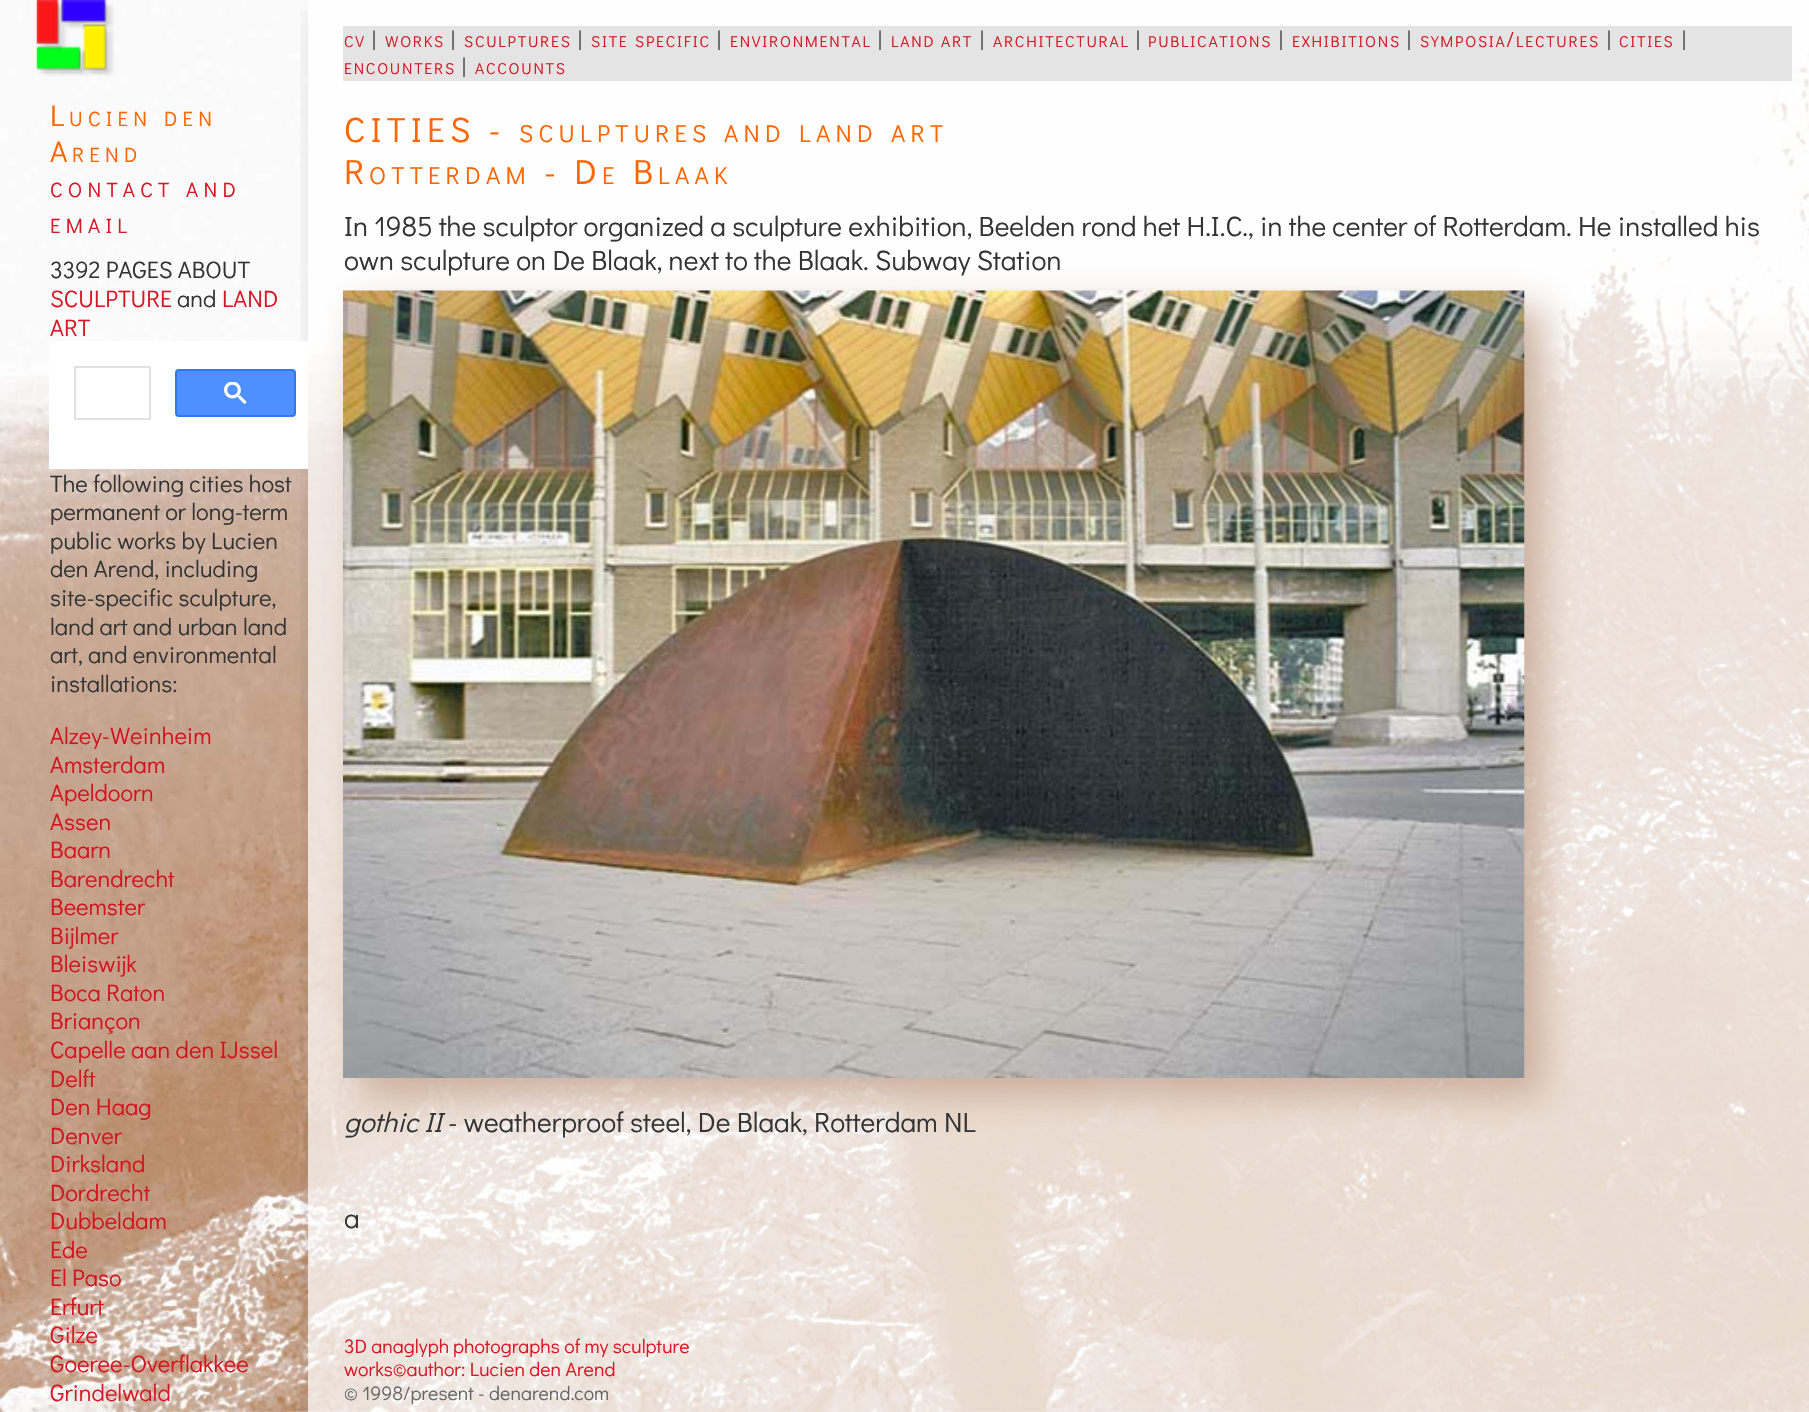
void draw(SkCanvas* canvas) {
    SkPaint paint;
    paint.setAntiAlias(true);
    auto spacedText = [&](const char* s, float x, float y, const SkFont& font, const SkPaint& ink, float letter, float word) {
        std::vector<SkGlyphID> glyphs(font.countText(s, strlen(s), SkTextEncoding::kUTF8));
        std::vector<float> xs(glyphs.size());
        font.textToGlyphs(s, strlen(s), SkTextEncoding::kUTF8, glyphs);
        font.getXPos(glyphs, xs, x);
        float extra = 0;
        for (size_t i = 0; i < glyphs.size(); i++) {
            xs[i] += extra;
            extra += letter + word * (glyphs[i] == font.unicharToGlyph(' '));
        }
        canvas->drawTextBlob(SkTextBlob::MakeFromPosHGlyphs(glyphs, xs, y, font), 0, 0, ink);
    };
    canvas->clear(0xFFFFFFFF);
    canvas->drawImageRect(SkImages::DeferredFromEncodedData(SkData::MakeFromFileName("img1.png")), SkRect::MakeXYWH(0, 0, 1809, 1412), SkSamplingOptions());
    canvas->drawImageRect(SkImages::DeferredFromEncodedData(SkData::MakeFromFileName("img2.png")), SkRect::MakeXYWH(36, 0, 78, 76), SkSamplingOptions());
    SkFont font1(fontMgr->matchFamilyStyle("Didact Gothic", SkFontStyle::Normal()), 30);
    font1.setSubpixel(true);
    paint.setColor(0xFFFF6600);
    spacedText("L", 50, 126, font1, paint, 5.25f, 0);
    SkFont font2(fontMgr->matchFamilyStyle("Didact Gothic", SkFontStyle::Normal()), 20.75f);
    font2.setSubpixel(true);
    spacedText("UCIEN", 69, 126, font2, paint, 5.25f, 0);
    spacedText("DEN", 164, 126, font2, paint, 5.25f, 0);
    spacedText("A", 50, 162, font1, paint, 5.25f, 0);
    spacedText("REND", 72, 162, font2, paint, 5.25f, 0);
    paint.setColor(0xFFD81726);
    spacedText("CONTACT", 50, 197, font2, paint, 5.25f, 0);
    spacedText("AND", 186, 197, font2, paint, 5.25f, 0);
    spacedText("EMAIL", 50, 233, font2, paint, 5.25f, 0);
    SkFont font3(fontMgr->matchFamilyStyle("Didact Gothic", SkFontStyle::Normal()), 23.75f);
    font3.setSubpixel(true);
    paint.setColor(0xFF333333);
    canvas->drawString("3392 PAGES ABOUT", 50, 278, font3, paint);
    paint.setColor(0xFFD81726);
    canvas->drawString("SCULPTURE", 50, 307, font3, paint);
    paint.setColor(0xFF333333);
    canvas->drawString("and", 177, 307, font3, paint);
    canvas->save();
    canvas->clipRect(SkRect::MakeXYWH(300, 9, 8, 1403));
    paint.setColor(0x4D000000);
    paint.setMaskFilter(SkMaskFilter::MakeBlur(kNormal_SkBlurStyle, 17.5f));
    canvas->drawRect(SkRect::MakeXYWH(326, 11, 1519, 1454), paint);
    paint.setMaskFilter(nullptr);
    canvas->restore();
    paint.setColor(0xFFD81726);
    canvas->drawString("LAND", 222, 307, font3, paint);
    canvas->drawString("ART", 50, 336, font3, paint);
    paint.setColor(0xB3FFFFFF);
    canvas->drawRect(SkRect::MakeXYWH(308, 0, 1501, 1412), paint);
    paint.setColor(0xE6C8AA96);
    paint.setMaskFilter(SkMaskFilter::MakeBlur(kNormal_SkBlurStyle, 17.5f));
    canvas->drawRect(SkRect::MakeXYWH(361, 308, 1181, 788), paint);
    paint.setMaskFilter(nullptr);
    paint.setColor(0xFFFFFFFF);
    canvas->drawRect(SkRect::MakeXYWH(49, 341, 259, 128), paint);
    paint.setStyle(SkPaint::kStroke_Style);
    paint.setStrokeWidth(2);
    paint.setColor(0xFFDFE1E5);
    canvas->drawRect(SkRect::MakeXYWH(75, 367, 75, 52), paint);
    paint.setStyle(SkPaint::kFill_Style);
    paint.setColor(0xFF4D90FE);
    canvas->drawRoundRect(SkRect::MakeXYWH(176, 370, 119, 46), 3, 3, paint);
    paint.setStyle(SkPaint::kStroke_Style);
    paint.setColor(0xFF3079ED);
    canvas->drawRoundRect(SkRect::MakeXYWH(176, 370, 119, 46), 3, 3, paint);
    canvas->drawImageRect(SkImages::DeferredFromEncodedData(SkData::MakeFromFileName("img3.png")), SkRect::MakeXYWH(224, 382, 23, 22), SkSamplingOptions());
    paint.setStyle(SkPaint::kFill_Style);
    paint.setColor(0xFF333333);
    canvas->drawString("The following cities host", 50, 492, font3, paint);
    canvas->drawString("permanent or long-term", 50, 520, font3, paint);
    canvas->drawString("public works by Lucien", 50, 549, font3, paint);
    canvas->drawString("den Arend, including", 50, 577, font3, paint);
    canvas->drawString("site-specific sculpture,", 50, 606, font3, paint);
    canvas->drawString("land art and urban land", 50, 635, font3, paint);
    canvas->drawString("art, and environmental", 50, 663, font3, paint);
    canvas->drawString("installations:", 50, 692, font3, paint);
    paint.setColor(0xFFD5111E);
    canvas->drawString("Alzey-Weinheim", 50, 744, font3, paint);
    canvas->drawString("Amsterdam", 50, 773, font3, paint);
    canvas->drawString("Apeldoorn", 50, 801, font3, paint);
    canvas->drawString("Assen", 50, 830, font3, paint);
    canvas->drawString("Baarn", 50, 858, font3, paint);
    canvas->drawString("Barendrecht", 50, 887, font3, paint);
    canvas->drawString("Beemster", 50, 915, font3, paint);
    canvas->drawString("Bijlmer", 50, 944, font3, paint);
    canvas->drawString("Bleiswijk", 50, 972, font3, paint);
    canvas->drawString("Boca Raton", 50, 1001, font3, paint);
    canvas->drawString("Briançon", 50, 1029, font3, paint);
    canvas->drawString("Capelle aan den IJssel", 50, 1058, font3, paint);
    canvas->drawString("Delft", 50, 1087, font3, paint);
    canvas->drawString("Den Haag", 50, 1115, font3, paint);
    canvas->drawString("Denver", 50, 1144, font3, paint);
    canvas->drawString("Dirksland", 50, 1172, font3, paint);
    canvas->drawString("Dordrecht", 50, 1201, font3, paint);
    canvas->drawString("Dubbeldam", 50, 1229, font3, paint);
    canvas->drawString("Ede", 50, 1258, font3, paint);
    canvas->drawString("El Paso", 50, 1286, font3, paint);
    canvas->drawString("Erfurt", 50, 1315, font3, paint);
    paint.setColor(0xFFD81726);
    canvas->drawString("Gilze", 50, 1343, font3, paint);
    paint.setColor(0xFFD5111E);
    canvas->drawString("Goeree-Overflakkee", 50, 1372, font3, paint);
    paint.setColor(0xFFD81726);
    canvas->drawString("Grindelwald", 50, 1401, font3, paint);
    paint.setColor(0xFFE4E4E4);
    canvas->drawRect(SkRect::MakeXYWH(343, 26, 1449, 55), paint);
    SkFont font4(fontMgr->matchFamilyStyle("Didact Gothic", SkFontStyle::Normal()), 15.75f);
    font4.setSubpixel(true);
    paint.setColor(0xFFD81726);
    spacedText("CV", 344, 47, font4, paint, 1.75f, 0);
    SkFont font5(fontMgr->matchFamilyStyle("Didact Gothic", SkFontStyle::Normal()), 22);
    font5.setSubpixel(true);
    paint.setColor(0xFF333333);
    spacedText("|", 372, 47, font5, paint, 1.75f, 0);
    paint.setColor(0xFFD81726);
    spacedText("WORKS", 385, 47, font4, paint, 1.75f, 0);
    paint.setColor(0xFF333333);
    spacedText("|", 451, 47, font5, paint, 1.75f, 0);
    paint.setColor(0xFFD81726);
    spacedText("SCULPTURES", 464, 47, font4, paint, 1.75f, 0);
    paint.setColor(0xFF333333);
    spacedText("|", 578, 47, font5, paint, 1.75f, 0);
    paint.setColor(0xFFD81726);
    spacedText("SITE", 591, 47, font4, paint, 1.75f, 0);
    spacedText("SPECIFIC", 635, 47, font4, paint, 1.75f, 0);
    paint.setColor(0xFF333333);
    spacedText("|", 717, 47, font5, paint, 1.75f, 0);
    paint.setColor(0xFFD81726);
    spacedText("ENVIRONMENTAL", 730, 47, font4, paint, 1.75f, 0);
    paint.setColor(0xFF333333);
    spacedText("|", 878, 47, font5, paint, 1.75f, 0);
    paint.setColor(0xFFD81726);
    spacedText("LAND", 891, 47, font4, paint, 1.75f, 0);
    spacedText("ART", 941, 47, font4, paint, 1.75f, 0);
    paint.setColor(0xFF333333);
    spacedText("|", 980, 47, font5, paint, 1.75f, 0);
    paint.setColor(0xFFD81726);
    spacedText("ARCHITECTURAL", 993, 47, font4, paint, 1.75f, 0);
    paint.setColor(0xFF333333);
    spacedText("|", 1136, 47, font5, paint, 1.75f, 0);
    paint.setColor(0xFFD81726);
    spacedText("PUBLICATIONS", 1148, 47, font4, paint, 1.75f, 0);
    paint.setColor(0xFF333333);
    spacedText("|", 1279, 47, font5, paint, 1.75f, 0);
    paint.setColor(0xFFD81726);
    spacedText("EXHIBITIONS", 1292, 47, font4, paint, 1.75f, 0);
    paint.setColor(0xFF333333);
    spacedText("|", 1407, 47, font5, paint, 1.75f, 0);
    paint.setColor(0xFFD81726);
    spacedText("SYMPOSIA", 1420, 47, font4, paint, 1.75f, 0);
    spacedText("/", 1506, 47, font5, paint, 1.75f, 0);
    spacedText("LECTURES", 1516, 47, font4, paint, 1.75f, 0);
    paint.setColor(0xFF333333);
    spacedText("|", 1607, 47, font5, paint, 1.75f, 0);
    paint.setColor(0xFFD81726);
    spacedText("CITIES", 1619, 47, font4, paint, 1.75f, 0);
    paint.setColor(0xFF333333);
    spacedText("|", 1682, 47, font5, paint, 1.75f, 0);
    paint.setColor(0xFFD81726);
    spacedText("ENCOUNTERS", 344, 74, font4, paint, 1.75f, 0);
    paint.setColor(0xFF333333);
    spacedText("|", 462, 74, font5, paint, 1.75f, 0);
    paint.setColor(0xFFD81726);
    spacedText("ACCOUNTS", 475, 74, font4, paint, 1.75f, 0);
    SkFont font6(fontMgr->matchFamilyStyle("Didact Gothic", SkFontStyle::Normal()), 35);
    font6.setSubpixel(true);
    paint.setColor(0xFFFF6600);
    spacedText("CITIES -", 344, 142, font6, paint, 5.25f, 0);
    SkFont font7(fontMgr->matchFamilyStyle("Didact Gothic", SkFontStyle::Normal()), 24.5f);
    font7.setSubpixel(true);
    spacedText("SCULPTURES", 519, 142, font7, paint, 5.25f, 0);
    spacedText("AND", 724, 142, font7, paint, 5.25f, 0);
    spacedText("LAND", 799, 142, font7, paint, 5.25f, 0);
    spacedText("ART", 891, 142, font7, paint, 5.25f, 0);
    spacedText("R", 344, 184, font6, paint, 5.25f, 0);
    spacedText("OTTERDAM", 369, 184, font7, paint, 5.25f, 0);
    spacedText("- D", 544, 184, font6, paint, 5.25f, 0);
    spacedText("E", 602, 184, font7, paint, 5.25f, 0);
    spacedText("B", 633, 184, font6, paint, 5.25f, 0);
    spacedText("LAAK", 658, 184, font7, paint, 5.25f, 0);
    SkFont font8(fontMgr->matchFamilyStyle("Didact Gothic", SkFontStyle::Normal()), 28);
    font8.setSubpixel(true);
    paint.setColor(0xFF333333);
    canvas->drawString("In 1985 the sculptor organized a sculpture exhibition, Beelden rond het H.I.C., in the center of Rotterdam. He installed his", 344, 236, font8, paint);
    canvas->drawString("own sculpture on De Blaak, next to the Blaak. Subway Station", 344, 270, font8, paint);
    canvas->drawImageRect(SkImages::DeferredFromEncodedData(SkData::MakeFromFileName("img4.png")), SkRect::MakeXYWH(343, 290, 1182, 788), SkSamplingOptions());
    SkFont font9(fontMgr->matchFamilyStyle("Didact Gothic", SkFontStyle::Italic()), 28);
    font9.setSubpixel(true);
    canvas->drawString("gothic II", 344, 1132, font9, paint);
    canvas->drawString("- weatherproof steel, De Blaak, Rotterdam NL", 448, 1132, font8, paint);
    canvas->drawString("a", 344, 1228, font8, paint);
    SkFont font10(fontMgr->matchFamilyStyle("Didact Gothic", SkFontStyle::Normal()), 19.6f);
    font10.setSubpixel(true);
    paint.setColor(0xFFD81726);
    canvas->drawString("3D anaglyph", 344, 1353, font10, paint);
    canvas->drawString("photographs of my sculpture", 453, 1353, font10, paint);
    canvas->drawString("works©author: Lucien den Arend", 344, 1376, font10, paint);
    paint.setColor(0xFF666666);
    canvas->drawString("© 1998/present - denarend.com", 344, 1400, font10, paint);
}
